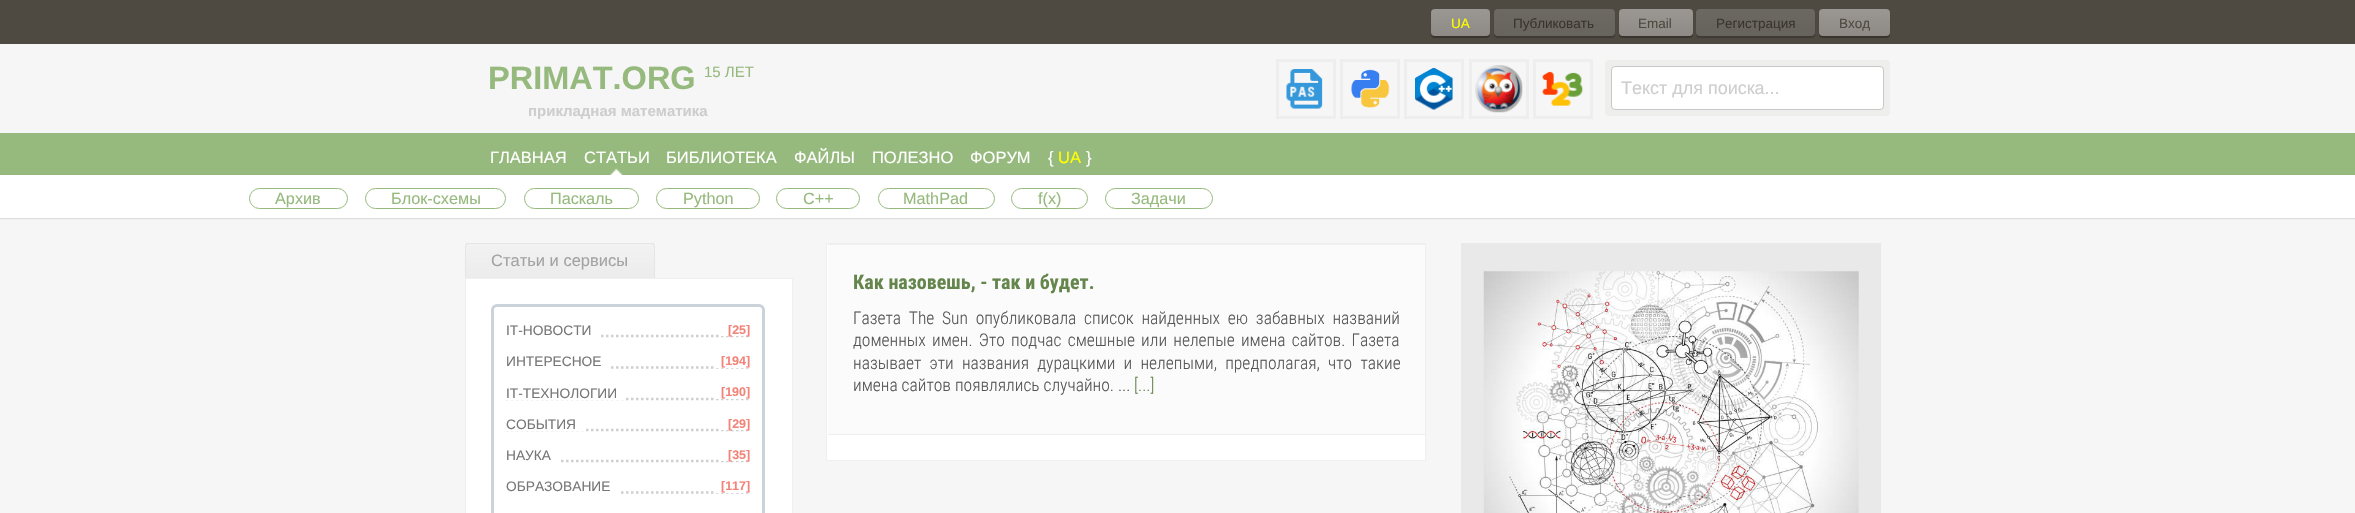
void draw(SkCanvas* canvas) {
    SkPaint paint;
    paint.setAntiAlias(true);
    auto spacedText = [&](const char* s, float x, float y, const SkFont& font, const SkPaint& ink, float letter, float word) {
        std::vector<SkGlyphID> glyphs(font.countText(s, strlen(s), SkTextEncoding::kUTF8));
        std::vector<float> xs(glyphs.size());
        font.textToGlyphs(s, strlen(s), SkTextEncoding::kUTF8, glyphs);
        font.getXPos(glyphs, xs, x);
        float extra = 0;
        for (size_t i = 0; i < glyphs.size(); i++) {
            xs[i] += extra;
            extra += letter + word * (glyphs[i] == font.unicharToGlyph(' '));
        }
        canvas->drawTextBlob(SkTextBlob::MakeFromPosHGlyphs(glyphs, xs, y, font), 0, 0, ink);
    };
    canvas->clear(0xFFF6F6F6);
    paint.setColor(0xFF4E4941);
    canvas->drawRect(SkRect::MakeXYWH(0, 0, 2355, 44), paint);
    paint.setColor(0x4D000000);
    paint.setMaskFilter(SkMaskFilter::MakeBlur(kNormal_SkBlurStyle, 0.5f));
    canvas->drawRoundRect(SkRect::MakeXYWH(1431, 10, 59, 28), 4, 4, paint);
    paint.setMaskFilter(nullptr);
    paint.setColor(0xFF4D473F);
    canvas->drawRoundRect(SkRect::MakeXYWH(1431, 9, 59, 27), 4, 4, paint);
    {
        const SkColor colors[] = {0x80CCCCCC, 0x80F4F4F4};
        const float stops[] = {0, 1};
        const SkPoint ends[] = {{1461, 37}, {1461, -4.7f}};
        paint.setShader(SkGradientShader::MakeLinear(ends, colors, stops, 2, SkTileMode::kClamp));
        paint.setAlpha(255);
    }
    canvas->drawRoundRect(SkRect::MakeXYWH(1431, 9, 59, 27), 4, 4, paint);
    SkFont font1(fontMgr->matchFamilyStyle("Liberation Sans", SkFontStyle::Normal()), 13.5f);
    font1.setSubpixel(true);
    paint.setShader(nullptr);
    paint.setColor(0xFFFFFF00);
    canvas->drawString("UA", 1451, 28, font1, paint);
    paint.setColor(0x33000000);
    paint.setMaskFilter(SkMaskFilter::MakeBlur(kNormal_SkBlurStyle, 0.5f));
    canvas->drawRoundRect(SkRect::MakeXYWH(1494, 10, 121, 28), 4, 4, paint);
    paint.setMaskFilter(nullptr);
    {
        const SkColor colors[] = {0xFF67635D, 0xFF6F6B65};
        const float stops[] = {0, 1};
        const SkPoint ends[] = {{1554, 37}, {1554, -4.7f}};
        paint.setShader(SkGradientShader::MakeLinear(ends, colors, stops, 2, SkTileMode::kClamp));
        paint.setAlpha(255);
    }
    canvas->drawRoundRect(SkRect::MakeXYWH(1494, 9, 121, 27), 4, 4, paint);
    paint.setShader(nullptr);
    paint.setColor(0xFF39352D);
    canvas->drawString("Публиковать", 1513, 28, font1, paint);
    paint.setColor(0x4D000000);
    paint.setMaskFilter(SkMaskFilter::MakeBlur(kNormal_SkBlurStyle, 0.5f));
    canvas->drawRoundRect(SkRect::MakeXYWH(1619, 10, 74, 28), 4, 4, paint);
    paint.setMaskFilter(nullptr);
    paint.setColor(0xFF4D473F);
    canvas->drawRoundRect(SkRect::MakeXYWH(1619, 9, 74, 27), 4, 4, paint);
    {
        const SkColor colors[] = {0x80CCCCCC, 0x80F4F4F4};
        const float stops[] = {0, 1};
        const SkPoint ends[] = {{1656, 37}, {1656, -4.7f}};
        paint.setShader(SkGradientShader::MakeLinear(ends, colors, stops, 2, SkTileMode::kClamp));
        paint.setAlpha(255);
    }
    canvas->drawRoundRect(SkRect::MakeXYWH(1619, 9, 74, 27), 4, 4, paint);
    paint.setShader(nullptr);
    paint.setColor(0xFF4E4940);
    canvas->drawString("Email", 1638, 28, font1, paint);
    paint.setColor(0x33000000);
    paint.setMaskFilter(SkMaskFilter::MakeBlur(kNormal_SkBlurStyle, 0.5f));
    canvas->drawRoundRect(SkRect::MakeXYWH(1696, 10, 119, 28), 4, 4, paint);
    paint.setMaskFilter(nullptr);
    {
        const SkColor colors[] = {0xFF66635D, 0xFF6E6B65};
        const float stops[] = {0, 1};
        const SkPoint ends[] = {{1756, 37}, {1756, -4.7f}};
        paint.setShader(SkGradientShader::MakeLinear(ends, colors, stops, 2, SkTileMode::kClamp));
        paint.setAlpha(255);
    }
    canvas->drawRoundRect(SkRect::MakeXYWH(1696, 9, 119, 27), 4, 4, paint);
    paint.setShader(nullptr);
    paint.setColor(0xFF39352D);
    canvas->drawString("Регистрация", 1716, 28, font1, paint);
    paint.setColor(0x4D000000);
    paint.setMaskFilter(SkMaskFilter::MakeBlur(kNormal_SkBlurStyle, 0.5f));
    canvas->drawRoundRect(SkRect::MakeXYWH(1819, 10, 71, 28), 4, 4, paint);
    paint.setMaskFilter(nullptr);
    {
        const SkColor colors[] = {0xFF8D8A86, 0xFFA19E9A};
        const float stops[] = {0, 1};
        const SkPoint ends[] = {{1854, 37}, {1854, -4.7f}};
        paint.setShader(SkGradientShader::MakeLinear(ends, colors, stops, 2, SkTileMode::kClamp));
        paint.setAlpha(255);
    }
    canvas->drawRoundRect(SkRect::MakeXYWH(1819, 9, 71, 27), 4, 4, paint);
    paint.setShader(nullptr);
    paint.setColor(0xFF4E4940);
    canvas->drawString("Вход", 1839, 28, font1, paint);
    SkFont font2(fontMgr->matchFamilyStyle("Liberation Sans", SkFontStyle::Bold()), 32.5f);
    font2.setSubpixel(true);
    paint.setColor(0xFF96B97D);
    canvas->drawString("PRIMAT.ORG", 488, 89, font2, paint);
    SkFont font3(fontMgr->matchFamilyStyle("Liberation Sans", SkFontStyle::Normal()), 15);
    font3.setSubpixel(true);
    canvas->drawString("15 ЛЕТ", 704, 77, font3, paint);
    SkFont font4(fontMgr->matchFamilyStyle("Liberation Sans", SkFontStyle::Bold()), 15);
    font4.setSubpixel(true);
    paint.setColor(0xFFCECECE);
    canvas->drawString("прикладная математика", 528, 116, font4, paint);
    paint.setStyle(SkPaint::kStroke_Style);
    paint.setStrokeWidth(3);
    paint.setColor(0xFFEEEEEE);
    canvas->drawRect(SkRect::MakeXYWH(1277.5f, 60.5f, 57, 57), paint);
    canvas->drawRect(SkRect::MakeXYWH(1341.5f, 60.5f, 57, 57), paint);
    canvas->drawRect(SkRect::MakeXYWH(1405.5f, 60.5f, 57, 57), paint);
    canvas->drawRect(SkRect::MakeXYWH(1470.5f, 60.5f, 57, 57), paint);
    canvas->drawRect(SkRect::MakeXYWH(1534.5f, 60.5f, 57, 57), paint);
    canvas->drawImageRect(SkImages::DeferredFromEncodedData(SkData::MakeFromFileName("img1.png")), SkRect::MakeXYWH(1286, 69, 37, 40), SkSamplingOptions());
    canvas->drawImageRect(SkImages::DeferredFromEncodedData(SkData::MakeFromFileName("img2.png")), SkRect::MakeXYWH(1351, 69, 39, 39), SkSamplingOptions());
    canvas->drawImageRect(SkImages::DeferredFromEncodedData(SkData::MakeFromFileName("img3.png")), SkRect::MakeXYWH(1415, 68, 38, 42), SkSamplingOptions());
    canvas->drawImageRect(SkImages::DeferredFromEncodedData(SkData::MakeFromFileName("img4.png")), SkRect::MakeXYWH(1475, 65, 48, 48), SkSamplingOptions());
    canvas->drawImageRect(SkImages::DeferredFromEncodedData(SkData::MakeFromFileName("img5.png")), SkRect::MakeXYWH(1542, 71, 41, 35), SkSamplingOptions());
    paint.setStyle(SkPaint::kFill_Style);
    paint.setColor(0xFFEEEFED);
    canvas->drawRoundRect(SkRect::MakeXYWH(1605, 60, 285, 56), 4, 4, paint);
    paint.setColor(0xFFFFFFFF);
    canvas->drawRoundRect(SkRect::MakeXYWH(1611.5f, 66.5f, 272, 43), 3.5f, 3.5f, paint);
    paint.setStyle(SkPaint::kStroke_Style);
    paint.setStrokeWidth(1);
    paint.setColor(0xFFC8C8C8);
    canvas->drawRoundRect(SkRect::MakeXYWH(1611.5f, 66.5f, 272, 43), 3.5f, 3.5f, paint);
    SkFont font5(fontMgr->matchFamilyStyle("Liberation Sans", SkFontStyle::Normal()), 18);
    font5.setSubpixel(true);
    paint.setStyle(SkPaint::kFill_Style);
    paint.setColor(0xFFCECECE);
    canvas->drawString("Текст для поиска...", 1621, 94, font5, paint);
    paint.setColor(0xFF96B97D);
    canvas->drawRect(SkRect::MakeXYWH(0, 133, 2355, 42), paint);
    SkFont font6(fontMgr->matchFamilyStyle("Liberation Sans", SkFontStyle::Normal()), 16.5f);
    font6.setSubpixel(true);
    paint.setColor(0xFFFFFFFF);
    canvas->drawString("ГЛАВНАЯ", 490, 163, font6, paint);
    canvas->drawString("СТАТЬИ", 584, 163, font6, paint);
    canvas->drawString("БИБЛИОТЕКА", 666, 163, font6, paint);
    canvas->drawString("ФАЙЛЫ", 794, 163, font6, paint);
    canvas->drawString("ПОЛЕЗНО", 872, 163, font6, paint);
    canvas->drawString("ФОРУМ", 970, 163, font6, paint);
    canvas->drawString("{", 1048, 163, font6, paint);
    paint.setColor(0xFFFFFF00);
    canvas->drawString("UA", 1058, 163, font6, paint);
    paint.setColor(0xFFFFFFFF);
    canvas->drawString("}", 1086, 163, font6, paint);
    paint.setColor(0x1A000000);
    paint.setMaskFilter(SkMaskFilter::MakeBlur(kNormal_SkBlurStyle, 0.5f));
    canvas->drawRect(SkRect::MakeXYWH(0, 176, 2355, 43), paint);
    paint.setMaskFilter(nullptr);
    canvas->drawImageRect(SkImages::DeferredFromEncodedData(SkData::MakeFromFileName("img6.png")), SkRect::MakeXYWH(610, 168, 13, 7), SkSamplingOptions());
    paint.setColor(0xFFFFFFFF);
    canvas->drawRect(SkRect::MakeXYWH(0, 175, 2355, 43), paint);
    paint.setStyle(SkPaint::kStroke_Style);
    paint.setColor(0xFF96B97D);
    canvas->drawRoundRect(SkRect::MakeXYWH(249.5f, 188.5f, 98, 20), 10, 10, paint);
    SkFont font7(fontMgr->matchFamilyStyle("Liberation Sans", SkFontStyle::Normal()), 16.25f);
    font7.setSubpixel(true);
    paint.setStyle(SkPaint::kFill_Style);
    canvas->drawString("Архив", 275, 204, font7, paint);
    paint.setStyle(SkPaint::kStroke_Style);
    canvas->drawRoundRect(SkRect::MakeXYWH(365.5f, 188.5f, 140, 20), 10, 10, paint);
    paint.setStyle(SkPaint::kFill_Style);
    canvas->drawString("Блок-схемы", 391, 204, font7, paint);
    paint.setStyle(SkPaint::kStroke_Style);
    canvas->drawRoundRect(SkRect::MakeXYWH(524.5f, 188.5f, 114, 20), 10, 10, paint);
    paint.setStyle(SkPaint::kFill_Style);
    canvas->drawString("Паскаль", 550, 204, font7, paint);
    paint.setStyle(SkPaint::kStroke_Style);
    canvas->drawRoundRect(SkRect::MakeXYWH(656.5f, 188.5f, 103, 20), 10, 10, paint);
    paint.setStyle(SkPaint::kFill_Style);
    canvas->drawString("Python", 683, 204, font7, paint);
    paint.setStyle(SkPaint::kStroke_Style);
    canvas->drawRoundRect(SkRect::MakeXYWH(776.5f, 188.5f, 83, 20), 10, 10, paint);
    paint.setStyle(SkPaint::kFill_Style);
    canvas->drawString("C++", 803, 204, font7, paint);
    paint.setStyle(SkPaint::kStroke_Style);
    canvas->drawRoundRect(SkRect::MakeXYWH(878.5f, 188.5f, 116, 20), 10, 10, paint);
    paint.setStyle(SkPaint::kFill_Style);
    canvas->drawString("MathPad", 903, 204, font7, paint);
    paint.setStyle(SkPaint::kStroke_Style);
    canvas->drawRoundRect(SkRect::MakeXYWH(1011.5f, 188.5f, 76, 20), 10, 10, paint);
    paint.setStyle(SkPaint::kFill_Style);
    canvas->drawString("f(x)", 1038, 204, font7, paint);
    paint.setStyle(SkPaint::kStroke_Style);
    canvas->drawRoundRect(SkRect::MakeXYWH(1105.5f, 188.5f, 107, 20), 10, 10, paint);
    paint.setStyle(SkPaint::kFill_Style);
    canvas->drawString("Задачи", 1131, 204, font7, paint);
    {
        const SkColor colors[] = {0xFFEBEBEB, 0xFFF3F3F3};
        const float stops[] = {0, 1};
        const SkPoint ends[] = {{560, 283}, {560, 238}};
        paint.setShader(SkGradientShader::MakeLinear(ends, colors, stops, 2, SkTileMode::kClamp));
        paint.setAlpha(255);
    }
    canvas->drawPath(SkPathBuilder().moveTo(468.5f, 244).lineTo(651.5f, 244).cubicTo(653, 244, 654, 245, 654, 246.5f).lineTo(654, 278).lineTo(466, 278).lineTo(466, 246.5f).cubicTo(466, 245, 467, 244, 468.5f, 244).close().detach(), paint);
    canvas->save();
    canvas->clipRect(SkRect::MakeXYWH(465, 243, 1425, 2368));
    paint.setShader(nullptr);
    paint.setColor(0xFFE5E5E5);
    canvas->drawPath(SkPathBuilder(SkPathFillType::kEvenOdd).moveTo(469, 242).lineTo(651, 242).cubicTo(653, 242, 655, 244, 655, 246).lineTo(655, 278).lineTo(465, 278).lineTo(465, 246).cubicTo(465, 244, 467, 242, 469, 242).close().moveTo(469, 244).lineTo(651, 244).cubicTo(653, 244, 654, 245, 654, 246).lineTo(654, 278).lineTo(466, 278).lineTo(466, 246).cubicTo(466, 245, 467, 244, 469, 244).close().detach(), paint);
    canvas->restore();
    paint.setColor(0xFFA3A3A3);
    canvas->drawString("Статьи и сервисы", 491, 266, font6, paint);
    paint.setColor(0xFFFFFFFF);
    canvas->drawRect(SkRect::MakeXYWH(465.5f, 278.5f, 327, 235), paint);
    paint.setStyle(SkPaint::kStroke_Style);
    paint.setColor(0xFFEFEFEF);
    canvas->drawRect(SkRect::MakeXYWH(465.5f, 278.5f, 327, 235), paint);
    paint.setStrokeWidth(3);
    paint.setColor(0xFFCAD3DA);
    canvas->drawRoundRect(SkRect::MakeXYWH(492.5f, 305.5f, 271, 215), 4.5f, 4.5f, paint);
    paint.setStrokeWidth(2.5f);
    paint.setColor(0xFFD0D0D0);
    paint.setPathEffect(SkDashPathEffect::Make({{2.5f, 2.5f}}, 0));
    canvas->drawPath(SkPathBuilder().moveTo(506, 336).lineTo(750, 336).detach(), paint);
    paint.setPathEffect(nullptr);
    paint.setStyle(SkPaint::kFill_Style);
    paint.setColor(0xFFFFFFFF);
    canvas->drawRect(SkRect::MakeXYWH(506, 334, 93, 4), paint);
    SkFont font8(fontMgr->matchFamilyStyle("Liberation Sans", SkFontStyle::Normal()), 13.75f);
    font8.setSubpixel(true);
    paint.setColor(0xFF777777);
    canvas->drawString("IT-НОВОСТИ", 506, 335, font8, paint);
    paint.setColor(0xFFFFFFFF);
    canvas->drawRect(SkRect::MakeXYWH(721, 334, 28, 2), paint);
    SkFont font9(fontMgr->matchFamilyStyle("Liberation Sans", SkFontStyle::Bold()), 12.5f);
    font9.setSubpixel(true);
    paint.setColor(0xFFF38479);
    canvas->drawString("[25]", 728, 334, font9, paint);
    paint.setStyle(SkPaint::kStroke_Style);
    paint.setColor(0xFFD0D0D0);
    paint.setPathEffect(SkDashPathEffect::Make({{2.5f, 2.5f}}, 0));
    canvas->drawPath(SkPathBuilder().moveTo(506, 367.5f).lineTo(750, 367.5f).detach(), paint);
    paint.setPathEffect(nullptr);
    paint.setStyle(SkPaint::kFill_Style);
    paint.setColor(0xFFFFFFFF);
    canvas->drawRect(SkRect::MakeXYWH(506, 366, 103, 3), paint);
    paint.setColor(0xFF777777);
    canvas->drawString("ИНТЕРЕСНОЕ", 506, 366, font8, paint);
    paint.setColor(0xFFFFFFFF);
    canvas->drawRect(SkRect::MakeXYWH(716, 366, 33, 2), paint);
    paint.setColor(0xFFF38479);
    canvas->drawString("[194]", 721, 365, font9, paint);
    paint.setStyle(SkPaint::kStroke_Style);
    paint.setColor(0xFFD0D0D0);
    paint.setPathEffect(SkDashPathEffect::Make({{2.5f, 2.5f}}, 0));
    canvas->drawPath(SkPathBuilder().moveTo(506, 399).lineTo(750, 399).detach(), paint);
    paint.setPathEffect(nullptr);
    paint.setStyle(SkPaint::kFill_Style);
    paint.setColor(0xFFFFFFFF);
    canvas->drawRect(SkRect::MakeXYWH(506, 397, 118, 3), paint);
    paint.setColor(0xFF777777);
    canvas->drawString("IT-ТЕХНОЛОГИИ", 506, 398, font8, paint);
    paint.setColor(0xFFFFFFFF);
    canvas->drawRect(SkRect::MakeXYWH(716, 397, 33, 2), paint);
    paint.setColor(0xFFF38479);
    canvas->drawString("[190]", 721, 396, font9, paint);
    paint.setStyle(SkPaint::kStroke_Style);
    paint.setColor(0xFFD0D0D0);
    paint.setPathEffect(SkDashPathEffect::Make({{2.5f, 2.5f}}, 0));
    canvas->drawPath(SkPathBuilder().moveTo(506, 430).lineTo(750, 430).detach(), paint);
    paint.setPathEffect(nullptr);
    paint.setStyle(SkPaint::kFill_Style);
    paint.setColor(0xFFFFFFFF);
    canvas->drawRect(SkRect::MakeXYWH(506, 428, 78, 3), paint);
    paint.setColor(0xFF777777);
    canvas->drawString("СОБЫТИЯ", 506, 429, font8, paint);
    paint.setColor(0xFFFFFFFF);
    canvas->drawRect(SkRect::MakeXYWH(721, 428, 28, 2), paint);
    paint.setColor(0xFFF38479);
    canvas->drawString("[29]", 728, 428, font9, paint);
    paint.setStyle(SkPaint::kStroke_Style);
    paint.setColor(0xFFD0D0D0);
    paint.setPathEffect(SkDashPathEffect::Make({{2.5f, 2.5f}}, 0));
    canvas->drawPath(SkPathBuilder().moveTo(506, 461).lineTo(750, 461).detach(), paint);
    paint.setPathEffect(nullptr);
    paint.setStyle(SkPaint::kFill_Style);
    paint.setColor(0xFFFFFFFF);
    canvas->drawRect(SkRect::MakeXYWH(506, 459, 53, 4), paint);
    paint.setColor(0xFF777777);
    canvas->drawString("НАУКА", 506, 460, font8, paint);
    paint.setColor(0xFFFFFFFF);
    canvas->drawRect(SkRect::MakeXYWH(721, 459, 28, 2), paint);
    paint.setColor(0xFFF38479);
    canvas->drawString("[35]", 728, 459, font9, paint);
    paint.setStyle(SkPaint::kStroke_Style);
    paint.setColor(0xFFD0D0D0);
    paint.setPathEffect(SkDashPathEffect::Make({{2.5f, 2.5f}}, 0));
    canvas->drawPath(SkPathBuilder().moveTo(506, 492.5f).lineTo(750, 492.5f).detach(), paint);
    paint.setPathEffect(nullptr);
    paint.setStyle(SkPaint::kFill_Style);
    paint.setColor(0xFFFFFFFF);
    canvas->drawRect(SkRect::MakeXYWH(506, 491, 113, 3), paint);
    paint.setColor(0xFF777777);
    canvas->drawString("ОБРАЗОВАНИЕ", 506, 491, font8, paint);
    paint.setColor(0xFFFFFFFF);
    canvas->drawRect(SkRect::MakeXYWH(716, 491, 33, 2), paint);
    paint.setColor(0xFFF38479);
    canvas->drawString("[117]", 721, 490, font9, paint);
    paint.setColor(0xFFFFFFFF);
    canvas->drawRect(SkRect::MakeXYWH(826.5f, 243.5f, 599, 217), paint);
    paint.setStyle(SkPaint::kStroke_Style);
    paint.setStrokeWidth(1);
    paint.setColor(0xFFEFEFEF);
    canvas->drawRect(SkRect::MakeXYWH(826.5f, 243.5f, 599, 217), paint);
    paint.setStyle(SkPaint::kFill_Style);
    paint.setColor(0xFFFBFBFB);
    canvas->drawRect(SkRect::MakeXYWH(828, 245, 597, 189), paint);
    paint.setColor(0xFFEFEFEF);
    canvas->drawRect(SkRect::MakeXYWH(828, 244, 597, 1), paint);
    canvas->drawRect(SkRect::MakeXYWH(828, 434, 597, 1), paint);
    SkFont font10(fontMgr->matchFamilyStyle("Roboto Condensed", SkFontStyle::Bold()), 20);
    font10.setSubpixel(true);
    paint.setColor(0xFF64854C);
    canvas->drawString("Как назовешь, - так и будет.", 853, 289, font10, paint);
    SkFont font11(fontMgr->matchFamilyStyle("Roboto Condensed", SkFontStyle(300, SkFontStyle::kNormal_Width, SkFontStyle::kUpright_Slant)), 17.5f);
    font11.setSubpixel(true);
    paint.setColor(0xFF555555);
    spacedText("Газета The Sun опубликовала список найденных ею забавных названий", 853, 324, font11, paint, 0, 3.75f);
    spacedText("доменных имен. Это подчас смешные или нелепые имена сайтов. Газета", 853, 346, font11, paint, 0, 2.25f);
    spacedText("называет эти названия дурацкими и нелепыми, предполагая, что такие", 853, 369, font11, paint, 0, 4.25f);
    canvas->drawString("имена сайтов появлялись случайно. ...", 853, 391, font11, paint);
    paint.setColor(0xFF64854C);
    canvas->drawString("[...]", 1134, 391, font11, paint);
    paint.setColor(0xFFE9E9E9);
    canvas->drawRect(SkRect::MakeXYWH(1461, 243, 420, 270), paint);
    canvas->drawImageRect(SkImages::DeferredFromEncodedData(SkData::MakeFromFileName("img7.png")), SkRect::MakeXYWH(1483, 271, 376, 242), SkSamplingOptions());
}
